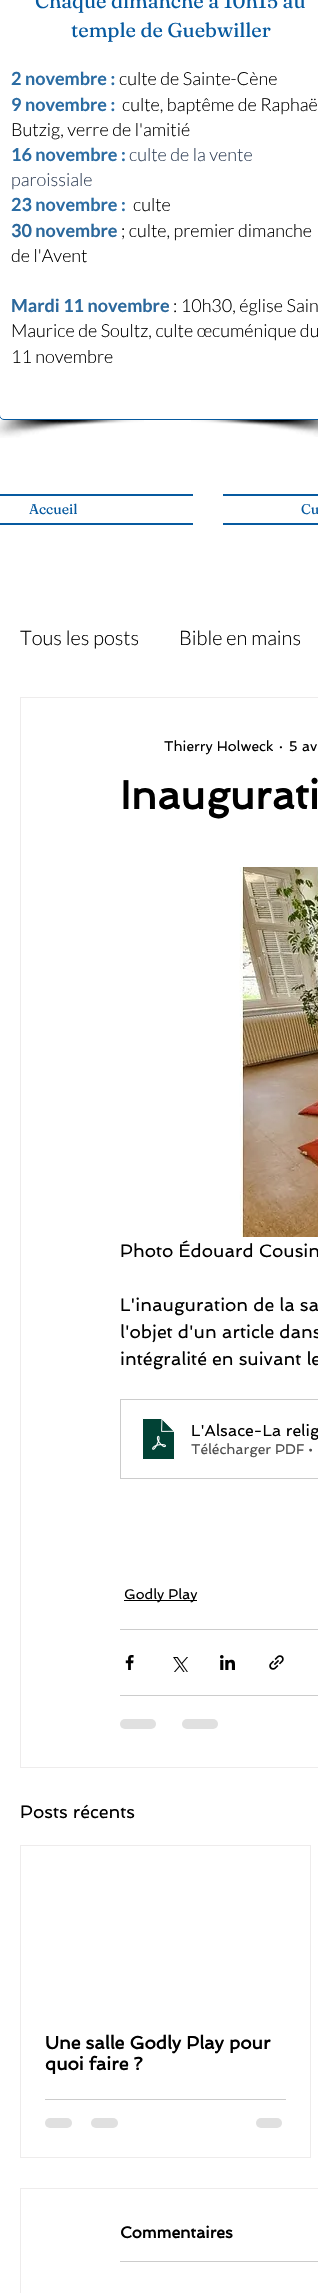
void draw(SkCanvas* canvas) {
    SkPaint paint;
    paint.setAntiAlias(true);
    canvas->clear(0xFFFFFFFF);
    paint.setStyle(SkPaint::kStroke_Style);
    paint.setStrokeWidth(1);
    paint.setColor(0xFF075AA0);
    canvas->drawRoundRect(SkRect::MakeXYWH(-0.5f, -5.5f, 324, 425), 4.5f, 4.5f, paint);
    SkFont font1(fontMgr->matchFamilyStyle("Fraunces", SkFontStyle::Normal()), 20);
    font1.setSubpixel(true);
    paint.setStyle(SkPaint::kFill_Style);
    canvas->drawString("Chaque dimanche à 10h15 au", 35, 8, font1, paint);
    canvas->drawString("temple de Guebwiller", 71, 37, font1, paint);
    SkFont font2(fontMgr->matchFamilyStyle("Lato", SkFontStyle::Bold()), 18);
    font2.setSubpixel(true);
    paint.setColor(0xFF2B6CA3);
    canvas->drawString("2 novembre :", 11, 85, font2, paint);
    SkFont font3(fontMgr->matchFamilyStyle("Lato", SkFontStyle(300, SkFontStyle::kNormal_Width, SkFontStyle::kUpright_Slant)), 18);
    font3.setSubpixel(true);
    paint.setColor(0xFF000000);
    canvas->drawString("culte de Sainte-Cène", 119, 85, font3, paint);
    paint.setColor(0xFF2B6CA3);
    canvas->drawString("9 novembre :", 11, 111, font2, paint);
    paint.setColor(0xFF000000);
    canvas->drawString("culte, baptême de Raphaë", 122, 111, font3, paint);
    canvas->drawString("Butzig, verre de l'amitié", 11, 136, font3, paint);
    paint.setColor(0xFF2B6CA3);
    canvas->drawString("16 novembre :", 11, 161, font2, paint);
    paint.setColor(0xFF324158);
    canvas->drawString("culte de la vente", 129, 161, font3, paint);
    canvas->drawString("paroissiale", 11, 186, font3, paint);
    paint.setColor(0xFF2B6CA3);
    canvas->drawString("23 novembre :", 11, 211, font2, paint);
    paint.setColor(0xFF000000);
    canvas->drawString("culte", 133, 211, font3, paint);
    paint.setColor(0xFF2B689C);
    canvas->drawString("30 novembre", 11, 237, font2, paint);
    paint.setColor(0xFF000000);
    canvas->drawString("; culte, premier dimanche", 121, 237, font3, paint);
    canvas->drawString("de l'Avent", 11, 262, font3, paint);
    paint.setColor(0xFF2B689C);
    canvas->drawString("Mardi 11 novembre", 11, 312, font2, paint);
    paint.setColor(0xFF000000);
    canvas->drawString(": 10h30, église Sain", 173, 312, font3, paint);
    canvas->drawString("Maurice de Soultz, culte œcuménique du", 11, 337, font3, paint);
    canvas->drawString("11 novembre", 11, 363, font3, paint);
    canvas->drawImageRect(SkImages::DeferredFromEncodedData(SkData::MakeFromFileName("img1.png")), SkRect::MakeXYWH(0, 420, 144, 18), SkSamplingOptions());
    canvas->drawImageRect(SkImages::DeferredFromEncodedData(SkData::MakeFromFileName("img2.png")), SkRect::MakeXYWH(191, 420, 127, 17), SkSamplingOptions());
    paint.setColor(0xFF075AA0);
    canvas->drawRect(SkRect::MakeXYWH(0, 494, 193, 2), paint);
    canvas->drawRect(SkRect::MakeXYWH(0, 523, 193, 2), paint);
    SkFont font4(fontMgr->matchFamilyStyle("Fraunces", SkFontStyle::Normal()), 14);
    font4.setSubpixel(true);
    canvas->drawString("Accueil", 29, 514, font4, paint);
    canvas->drawRect(SkRect::MakeXYWH(223, 494, 95, 2), paint);
    canvas->drawRect(SkRect::MakeXYWH(223, 523, 95, 2), paint);
    canvas->drawString("Cu", 301, 514, font4, paint);
    SkFont font5(fontMgr->matchFamilyStyle("Lato", SkFontStyle(300, SkFontStyle::kNormal_Width, SkFontStyle::kUpright_Slant)), 20);
    font5.setSubpixel(true);
    paint.setColor(0xFF000000);
    canvas->drawString("Tous les posts", 20, 645, font5, paint);
    canvas->drawString("Bible en mains", 179, 645, font5, paint);
    paint.setStyle(SkPaint::kStroke_Style);
    paint.setColor(0xFFEEECEC);
    canvas->drawRect(SkRect::MakeXYWH(20.5f, 697.5f, 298, 1070), paint);
    SkFont font6(fontMgr->matchFamilyStyle("Spinnaker", SkFontStyle::Normal()), 14);
    font6.setSubpixel(true);
    paint.setStyle(SkPaint::kFill_Style);
    paint.setColor(0xFF000000);
    canvas->drawString("Thierry Holweck", 164, 751, font6, paint);
    canvas->drawString("·", 279, 751, font6, paint);
    canvas->drawString("5 av", 289, 751, font6, paint);
    SkFont font7(fontMgr->matchFamilyStyle("Spinnaker", SkFontStyle::Bold()), 40);
    font7.setSubpixel(true);
    canvas->drawString("Inaugurati", 120, 809, font7, paint);
    canvas->drawImageRect(SkImages::DeferredFromEncodedData(SkData::MakeFromFileName("img3.png")), SkRect::MakeXYWH(239, 867, 79, 370), SkSamplingOptions());
    SkFont font8(fontMgr->matchFamilyStyle("Spinnaker", SkFontStyle::Normal()), 18);
    font8.setSubpixel(true);
    canvas->drawString("Photo Édouard Cousin", 120, 1257, font8, paint);
    canvas->drawString("L'inauguration de la sa", 120, 1311, font8, paint);
    canvas->drawString("l'objet d'un article dans", 120, 1338, font8, paint);
    canvas->drawString("intégralité en suivant le", 120, 1365, font8, paint);
    paint.setStyle(SkPaint::kStroke_Style);
    paint.setColor(0xFFCCCCCC);
    canvas->drawRect(SkRect::MakeXYWH(120.5f, 1399.5f, 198, 79), paint);
    canvas->drawImageRect(SkImages::DeferredFromEncodedData(SkData::MakeFromFileName("img4.png")), SkRect::MakeXYWH(142, 1418, 33, 42), SkSamplingOptions());
    SkFont font9(fontMgr->matchFamilyStyle("Spinnaker", SkFontStyle::Normal()), 16);
    font9.setSubpixel(true);
    paint.setStyle(SkPaint::kFill_Style);
    paint.setColor(0xFF000000);
    canvas->drawString("L'Alsace-La relig", 191, 1436, font9, paint);
    paint.setColor(0xFF4D4D4D);
    canvas->drawString("Télécharger PDF •", 191, 1454, font6, paint);
    paint.setColor(0xFF000000);
    canvas->drawRect(SkRect::MakeXYWH(124, 1600, 73, 1), paint);
    canvas->drawString("Godly Play", 124, 1599, font6, paint);
    paint.setColor(0xFFCCCCCC);
    canvas->drawRect(SkRect::MakeXYWH(120, 1629, 198, 1), paint);
    canvas->drawImageRect(SkImages::DeferredFromEncodedData(SkData::MakeFromFileName("img5.png")), SkRect::MakeXYWH(125, 1655, 9, 15), SkSamplingOptions());
    canvas->drawImageRect(SkImages::DeferredFromEncodedData(SkData::MakeFromFileName("img6.png")), SkRect::MakeXYWH(173, 1657, 15, 15), SkSamplingOptions());
    canvas->drawImageRect(SkImages::DeferredFromEncodedData(SkData::MakeFromFileName("img7.png")), SkRect::MakeXYWH(220, 1655, 15, 15), SkSamplingOptions());
    canvas->drawImageRect(SkImages::DeferredFromEncodedData(SkData::MakeFromFileName("img8.png")), SkRect::MakeXYWH(269, 1655, 15, 15), SkSamplingOptions());
    canvas->drawRect(SkRect::MakeXYWH(120, 1695, 198, 1), paint);
    paint.setColor(0xFFE0E0E0);
    canvas->drawRoundRect(SkRect::MakeXYWH(120, 1719, 36, 10), 5, 5, paint);
    canvas->drawRoundRect(SkRect::MakeXYWH(182, 1719, 36, 10), 5, 5, paint);
    paint.setColor(0xFF000000);
    canvas->drawString("Posts récents", 20, 1818, font8, paint);
    paint.setStyle(SkPaint::kStroke_Style);
    paint.setColor(0xFFEEECEC);
    canvas->drawRect(SkRect::MakeXYWH(20.5f, 1845.5f, 290, 312), paint);
    SkFont font10(fontMgr->matchFamilyStyle("Spinnaker", SkFontStyle::Bold()), 18);
    font10.setSubpixel(true);
    paint.setStyle(SkPaint::kFill_Style);
    paint.setColor(0xFF000000);
    canvas->drawString("Une salle Godly Play pour", 45, 2049, font10, paint);
    canvas->drawString("quoi faire ?", 45, 2070, font10, paint);
    paint.setColor(0xFFCCCCCC);
    canvas->drawRect(SkRect::MakeXYWH(45, 2099, 241, 1), paint);
    paint.setColor(0xFFE0E0E0);
    canvas->drawRoundRect(SkRect::MakeXYWH(45, 2118, 27, 10), 5, 5, paint);
    canvas->drawRoundRect(SkRect::MakeXYWH(91, 2118, 27, 10), 5, 5, paint);
    canvas->drawRoundRect(SkRect::MakeXYWH(256, 2118, 26, 10), 5, 5, paint);
    paint.setStyle(SkPaint::kStroke_Style);
    paint.setColor(0xFFEEECEC);
    canvas->drawRect(SkRect::MakeXYWH(20.5f, 2188.5f, 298, 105), paint);
    SkFont font11(fontMgr->matchFamilyStyle("Spinnaker", SkFontStyle::Bold()), 16);
    font11.setSubpixel(true);
    paint.setStyle(SkPaint::kFill_Style);
    paint.setColor(0xFF000000);
    canvas->drawString("Commentaires", 120, 2238, font11, paint);
    paint.setColor(0xFFCCCCCC);
    canvas->drawRect(SkRect::MakeXYWH(120, 2261, 198, 1), paint);
}
